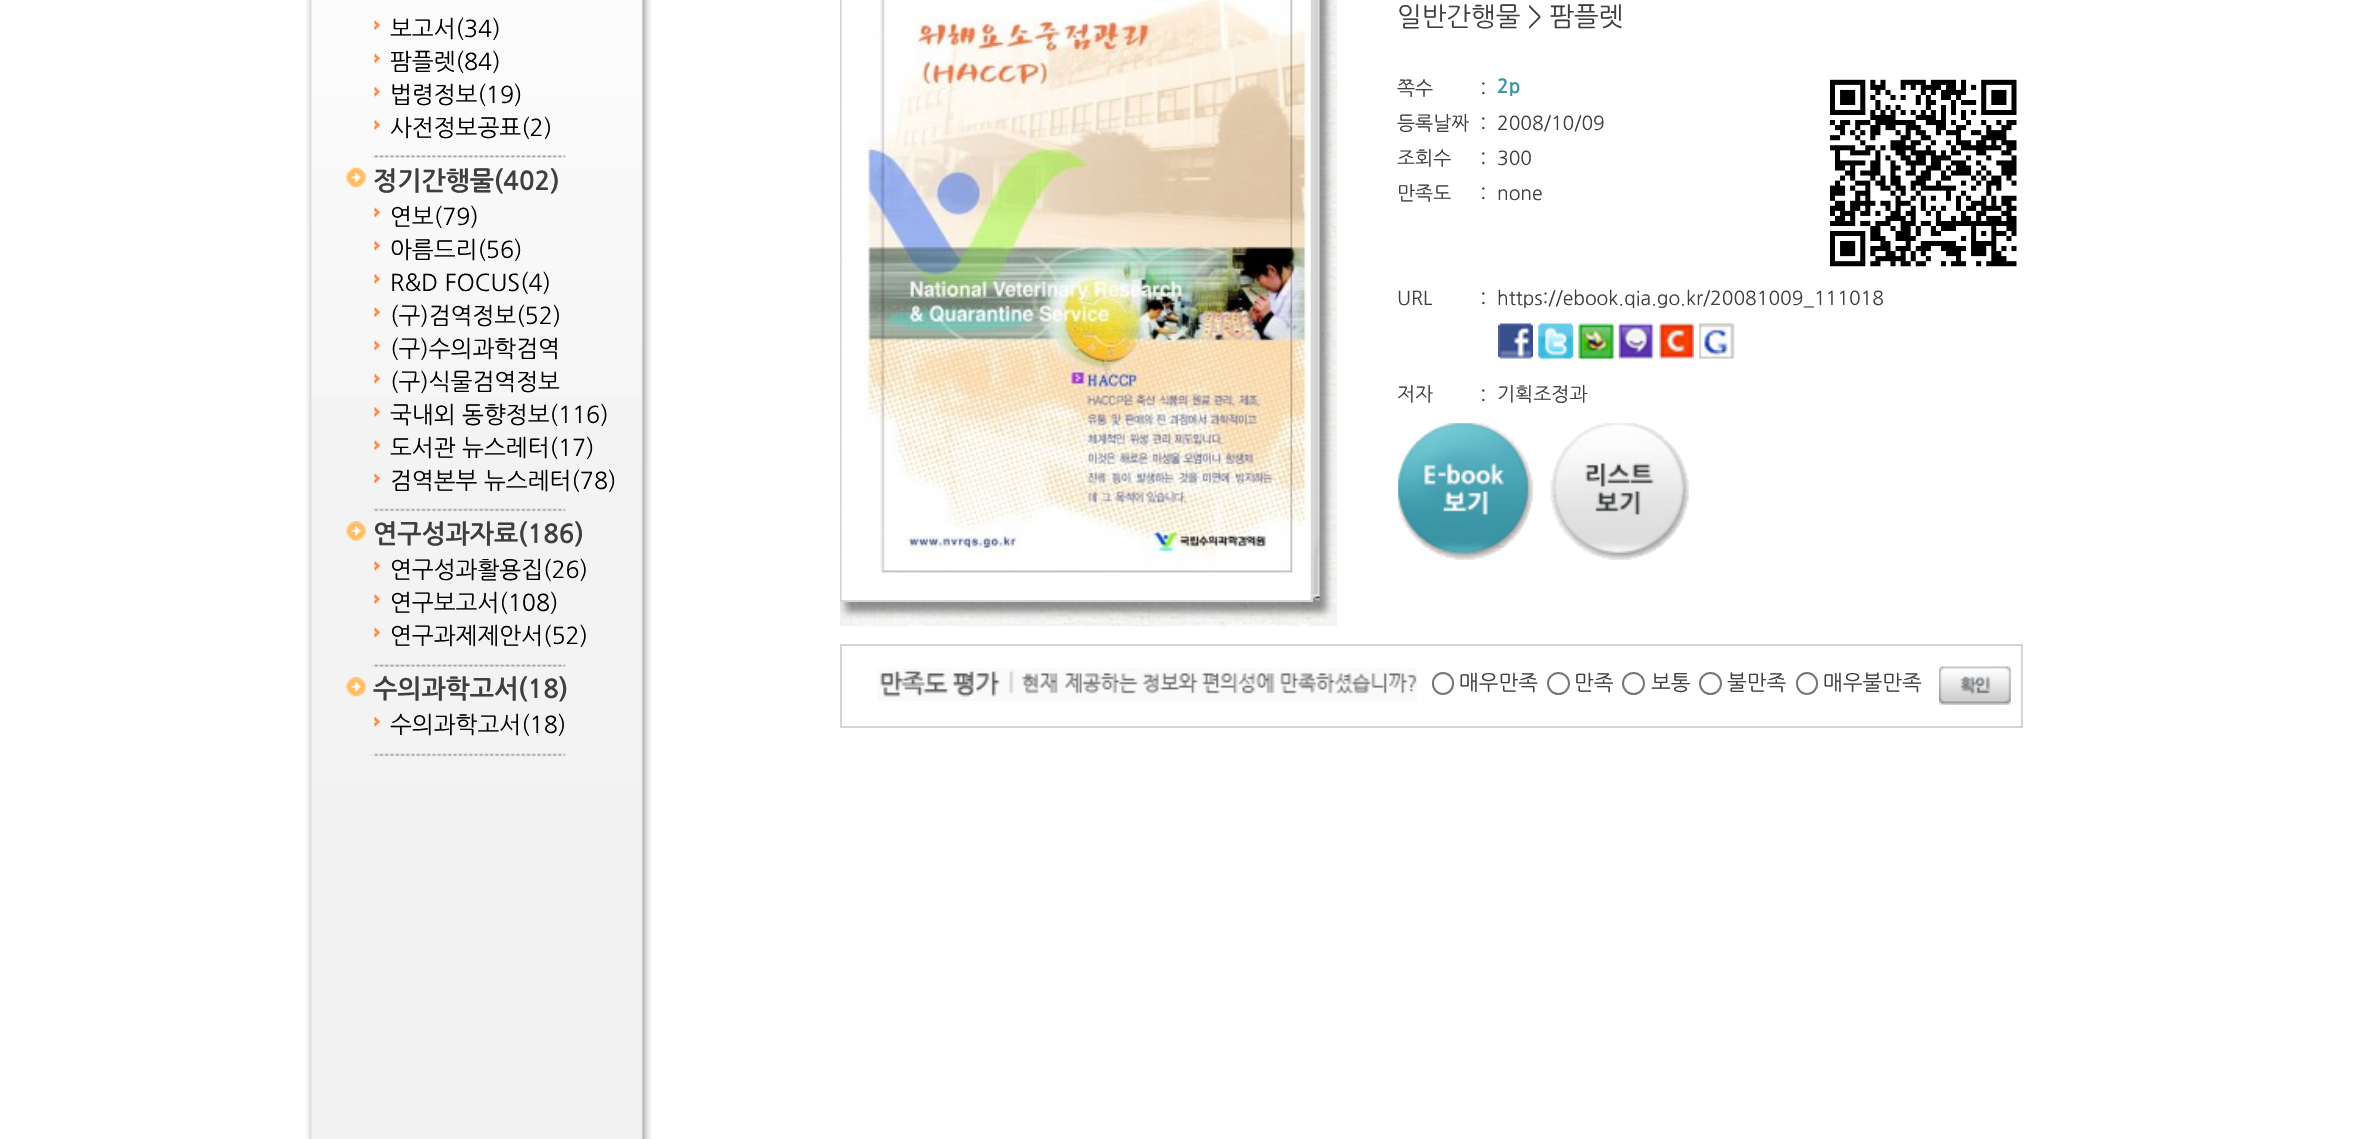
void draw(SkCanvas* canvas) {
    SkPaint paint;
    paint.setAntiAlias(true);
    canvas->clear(0xFFFFFFFF);
    canvas->drawImageRect(SkImages::DeferredFromEncodedData(SkData::MakeFromFileName("img1.png")), SkRect::MakeXYWH(306, 0, 346, 1139), SkSamplingOptions());
    canvas->drawImageRect(SkImages::DeferredFromEncodedData(SkData::MakeFromFileName("img2.png")), SkRect::MakeXYWH(374, 20, 6, 10), SkSamplingOptions());
    SkFont font1(fontMgr->matchFamilyStyle("NanumGothic", SkFontStyle::Normal()), 23.25f);
    font1.setSubpixel(true);
    paint.setColor(0xFF000000);
    canvas->drawString("보고서(34)", 390, 37, font1, paint);
    canvas->drawImageRect(SkImages::DeferredFromEncodedData(SkData::MakeFromFileName("img3.png")), SkRect::MakeXYWH(374, 53, 6, 11), SkSamplingOptions());
    canvas->drawString("팜플렛(84)", 390, 70, font1, paint);
    canvas->drawImageRect(SkImages::DeferredFromEncodedData(SkData::MakeFromFileName("img4.png")), SkRect::MakeXYWH(374, 86, 6, 11), SkSamplingOptions());
    canvas->drawString("법령정보(19)", 390, 103, font1, paint);
    canvas->drawImageRect(SkImages::DeferredFromEncodedData(SkData::MakeFromFileName("img5.png")), SkRect::MakeXYWH(374, 120, 6, 10), SkSamplingOptions());
    canvas->drawString("사전정보공표(2)", 390, 136, font1, paint);
    canvas->drawImageRect(SkImages::DeferredFromEncodedData(SkData::MakeFromFileName("img6.png")), SkRect::MakeXYWH(372, 155, 194, 3), SkSamplingOptions());
    canvas->drawImageRect(SkImages::DeferredFromEncodedData(SkData::MakeFromFileName("img7.png")), SkRect::MakeXYWH(346, 167, 20, 20), SkSamplingOptions());
    SkFont font2(fontMgr->matchFamilyStyle("NanumGothic", SkFontStyle::Bold()), 25.75f);
    font2.setSubpixel(true);
    paint.setColor(0xFF3F3F3F);
    canvas->drawString("정기간행물(402)", 373, 190, font2, paint);
    canvas->drawImageRect(SkImages::DeferredFromEncodedData(SkData::MakeFromFileName("img8.png")), SkRect::MakeXYWH(374, 207, 6, 11), SkSamplingOptions());
    paint.setColor(0xFF000000);
    canvas->drawString("연보(79)", 390, 225, font1, paint);
    canvas->drawImageRect(SkImages::DeferredFromEncodedData(SkData::MakeFromFileName("img9.png")), SkRect::MakeXYWH(374, 240, 6, 11), SkSamplingOptions());
    canvas->drawString("아름드리(56)", 390, 258, font1, paint);
    canvas->drawImageRect(SkImages::DeferredFromEncodedData(SkData::MakeFromFileName("img10.png")), SkRect::MakeXYWH(374, 274, 6, 10), SkSamplingOptions());
    canvas->drawString("R&D FOCUS(4)", 390, 291, font1, paint);
    canvas->drawImageRect(SkImages::DeferredFromEncodedData(SkData::MakeFromFileName("img11.png")), SkRect::MakeXYWH(374, 307, 6, 10), SkSamplingOptions());
    canvas->drawString("(구)검역정보(52)", 390, 324, font1, paint);
    canvas->drawImageRect(SkImages::DeferredFromEncodedData(SkData::MakeFromFileName("img12.png")), SkRect::MakeXYWH(374, 340, 6, 11), SkSamplingOptions());
    canvas->drawString("(구)수의과학검역", 390, 357, font1, paint);
    canvas->drawImageRect(SkImages::DeferredFromEncodedData(SkData::MakeFromFileName("img13.png")), SkRect::MakeXYWH(374, 373, 6, 11), SkSamplingOptions());
    canvas->drawString("(구)식물검역정보", 390, 390, font1, paint);
    canvas->drawImageRect(SkImages::DeferredFromEncodedData(SkData::MakeFromFileName("img14.png")), SkRect::MakeXYWH(374, 407, 6, 10), SkSamplingOptions());
    canvas->drawString("국내외 동향정보(116)", 390, 423, font1, paint);
    canvas->drawImageRect(SkImages::DeferredFromEncodedData(SkData::MakeFromFileName("img15.png")), SkRect::MakeXYWH(374, 440, 6, 10), SkSamplingOptions());
    canvas->drawString("도서관 뉴스레터(17)", 390, 456, font1, paint);
    canvas->drawImageRect(SkImages::DeferredFromEncodedData(SkData::MakeFromFileName("img16.png")), SkRect::MakeXYWH(374, 473, 6, 11), SkSamplingOptions());
    canvas->drawString("검역본부 뉴스레터(78)", 390, 489, font1, paint);
    canvas->drawImageRect(SkImages::DeferredFromEncodedData(SkData::MakeFromFileName("img17.png")), SkRect::MakeXYWH(372, 508, 194, 4), SkSamplingOptions());
    canvas->drawImageRect(SkImages::DeferredFromEncodedData(SkData::MakeFromFileName("img18.png")), SkRect::MakeXYWH(346, 521, 20, 20), SkSamplingOptions());
    paint.setColor(0xFF3F3F3F);
    canvas->drawString("연구성과자료(186)", 373, 543, font2, paint);
    canvas->drawImageRect(SkImages::DeferredFromEncodedData(SkData::MakeFromFileName("img19.png")), SkRect::MakeXYWH(374, 561, 6, 10), SkSamplingOptions());
    paint.setColor(0xFF000000);
    canvas->drawString("연구성과활용집(26)", 390, 578, font1, paint);
    canvas->drawImageRect(SkImages::DeferredFromEncodedData(SkData::MakeFromFileName("img20.png")), SkRect::MakeXYWH(374, 594, 6, 10), SkSamplingOptions());
    canvas->drawString("연구보고서(108)", 390, 611, font1, paint);
    canvas->drawImageRect(SkImages::DeferredFromEncodedData(SkData::MakeFromFileName("img16.png")), SkRect::MakeXYWH(374, 627, 6, 11), SkSamplingOptions());
    canvas->drawString("연구과제제안서(52)", 390, 644, font1, paint);
    canvas->drawImageRect(SkImages::DeferredFromEncodedData(SkData::MakeFromFileName("img21.png")), SkRect::MakeXYWH(372, 664, 194, 3), SkSamplingOptions());
    canvas->drawImageRect(SkImages::DeferredFromEncodedData(SkData::MakeFromFileName("img22.png")), SkRect::MakeXYWH(346, 677, 20, 20), SkSamplingOptions());
    paint.setColor(0xFF3F3F3F);
    canvas->drawString("수의과학고서(18)", 373, 698, font2, paint);
    canvas->drawImageRect(SkImages::DeferredFromEncodedData(SkData::MakeFromFileName("img23.png")), SkRect::MakeXYWH(374, 716, 6, 11), SkSamplingOptions());
    paint.setColor(0xFF000000);
    canvas->drawString("수의과학고서(18)", 390, 733, font1, paint);
    canvas->drawImageRect(SkImages::DeferredFromEncodedData(SkData::MakeFromFileName("img17.png")), SkRect::MakeXYWH(372, 753, 194, 4), SkSamplingOptions());
    canvas->drawImageRect(SkImages::DeferredFromEncodedData(SkData::MakeFromFileName("img24.png")), SkRect::MakeXYWH(840, 0, 497, 627), SkSamplingOptions());
    paint.setStyle(SkPaint::kStroke_Style);
    paint.setStrokeWidth(2);
    paint.setColor(0xFFD6D6D6);
    canvas->drawRect(SkRect::MakeXYWH(841, -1, 471, 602), paint);
    canvas->drawImageRect(SkImages::DeferredFromEncodedData(SkData::MakeFromFileName("img25.png")), SkRect::MakeXYWH(841, 0, 470, 600), SkSamplingOptions());
    SkFont font3(fontMgr->matchFamilyStyle("NanumGothic", SkFontStyle::Normal()), 26.25f);
    font3.setSubpixel(true);
    paint.setStyle(SkPaint::kFill_Style);
    paint.setColor(0xFF3F3F3F);
    canvas->drawString("일반간행물 > 팜플렛", 1397, 26, font3, paint);
    SkFont font4(fontMgr->matchFamilyStyle("NanumGothic", SkFontStyle::Normal()), 19.25f);
    font4.setSubpixel(true);
    canvas->drawString("쪽수", 1397, 95, font4, paint);
    SkFont font5(fontMgr->matchFamilyStyle("NanumGothic", SkFontStyle::Normal()), 21);
    font5.setSubpixel(true);
    canvas->drawString(":", 1480, 96, font5, paint);
    SkFont font6(fontMgr->matchFamilyStyle("NanumGothic", SkFontStyle::Bold()), 19.25f);
    font6.setSubpixel(true);
    paint.setColor(0xFF3C95A5);
    canvas->drawString("2p", 1497, 93, font6, paint);
    paint.setColor(0xFF3F3F3F);
    canvas->drawString("등록날짜", 1397, 130, font4, paint);
    canvas->drawString(":", 1480, 131, font5, paint);
    canvas->drawString("2008/10/09", 1497, 130, font4, paint);
    canvas->drawString("조회수", 1397, 165, font4, paint);
    canvas->drawString(":", 1480, 166, font5, paint);
    canvas->drawString("300", 1497, 165, font4, paint);
    canvas->drawString("만족도", 1397, 200, font4, paint);
    canvas->drawString(":", 1480, 201, font5, paint);
    canvas->drawString("none", 1497, 200, font4, paint);
    canvas->drawImageRect(SkImages::DeferredFromEncodedData(SkData::MakeFromFileName("img26.png")), SkRect::MakeXYWH(1830, 79, 187, 188), SkSamplingOptions());
    canvas->drawString("URL", 1397, 305, font4, paint);
    canvas->drawString(":", 1480, 306, font5, paint);
    canvas->drawString("https://ebook.qia.go.kr/20081009_111018", 1497, 305, font4, paint);
    canvas->drawImageRect(SkImages::DeferredFromEncodedData(SkData::MakeFromFileName("img27.png")), SkRect::MakeXYWH(1498, 323, 35, 36), SkSamplingOptions());
    canvas->drawImageRect(SkImages::DeferredFromEncodedData(SkData::MakeFromFileName("img28.png")), SkRect::MakeXYWH(1538, 323, 36, 36), SkSamplingOptions());
    canvas->drawImageRect(SkImages::DeferredFromEncodedData(SkData::MakeFromFileName("img29.png")), SkRect::MakeXYWH(1578, 323, 36, 36), SkSamplingOptions());
    canvas->drawImageRect(SkImages::DeferredFromEncodedData(SkData::MakeFromFileName("img30.png")), SkRect::MakeXYWH(1618, 323, 36, 36), SkSamplingOptions());
    canvas->drawImageRect(SkImages::DeferredFromEncodedData(SkData::MakeFromFileName("img31.png")), SkRect::MakeXYWH(1659, 323, 35, 36), SkSamplingOptions());
    canvas->drawImageRect(SkImages::DeferredFromEncodedData(SkData::MakeFromFileName("img32.png")), SkRect::MakeXYWH(1699, 323, 36, 36), SkSamplingOptions());
    canvas->drawString("저자", 1397, 401, font4, paint);
    canvas->drawString(":", 1480, 403, font5, paint);
    canvas->drawString("기획조정과", 1497, 401, font4, paint);
    canvas->drawImageRect(SkImages::DeferredFromEncodedData(SkData::MakeFromFileName("img33.png")), SkRect::MakeXYWH(1398, 423, 135, 137), SkSamplingOptions());
    canvas->drawImageRect(SkImages::DeferredFromEncodedData(SkData::MakeFromFileName("img34.png")), SkRect::MakeXYWH(1550, 423, 139, 137), SkSamplingOptions());
    paint.setStyle(SkPaint::kStroke_Style);
    paint.setColor(0xFFD4D4D4);
    canvas->drawRect(SkRect::MakeXYWH(841, 645, 1181, 82), paint);
    canvas->drawImageRect(SkImages::DeferredFromEncodedData(SkData::MakeFromFileName("img35.png")), SkRect::MakeXYWH(877, 668, 540, 33), SkSamplingOptions());
    paint.setColor(0xFF767676);
    canvas->drawRoundRect(SkRect::MakeXYWH(1433, 673, 20, 21), 10, 10, paint);
    paint.setStyle(SkPaint::kFill_Style);
    paint.setColor(0xFF3F3F3F);
    canvas->drawString("매우만족", 1459, 690, font5, paint);
    paint.setStyle(SkPaint::kStroke_Style);
    paint.setColor(0xFF767676);
    canvas->drawCircle(1558.5f, 683.5f, 10.5f, paint);
    paint.setStyle(SkPaint::kFill_Style);
    paint.setColor(0xFF3F3F3F);
    canvas->drawString("만족", 1574, 690, font5, paint);
    paint.setStyle(SkPaint::kStroke_Style);
    paint.setColor(0xFF767676);
    canvas->drawCircle(1633.5f, 683.5f, 10.5f, paint);
    paint.setStyle(SkPaint::kFill_Style);
    paint.setColor(0xFF3F3F3F);
    canvas->drawString("보통", 1651, 690, font5, paint);
    paint.setStyle(SkPaint::kStroke_Style);
    paint.setColor(0xFF767676);
    canvas->drawCircle(1710.5f, 683.5f, 10.5f, paint);
    paint.setStyle(SkPaint::kFill_Style);
    paint.setColor(0xFF3F3F3F);
    canvas->drawString("불만족", 1727, 690, font5, paint);
    paint.setStyle(SkPaint::kStroke_Style);
    paint.setColor(0xFF767676);
    canvas->drawRoundRect(SkRect::MakeXYWH(1797, 673, 20, 21), 10, 10, paint);
    paint.setStyle(SkPaint::kFill_Style);
    paint.setColor(0xFF3F3F3F);
    canvas->drawString("매우불만족", 1823, 690, font5, paint);
    canvas->drawImageRect(SkImages::DeferredFromEncodedData(SkData::MakeFromFileName("img36.png")), SkRect::MakeXYWH(1939, 666, 72, 39), SkSamplingOptions());
}
